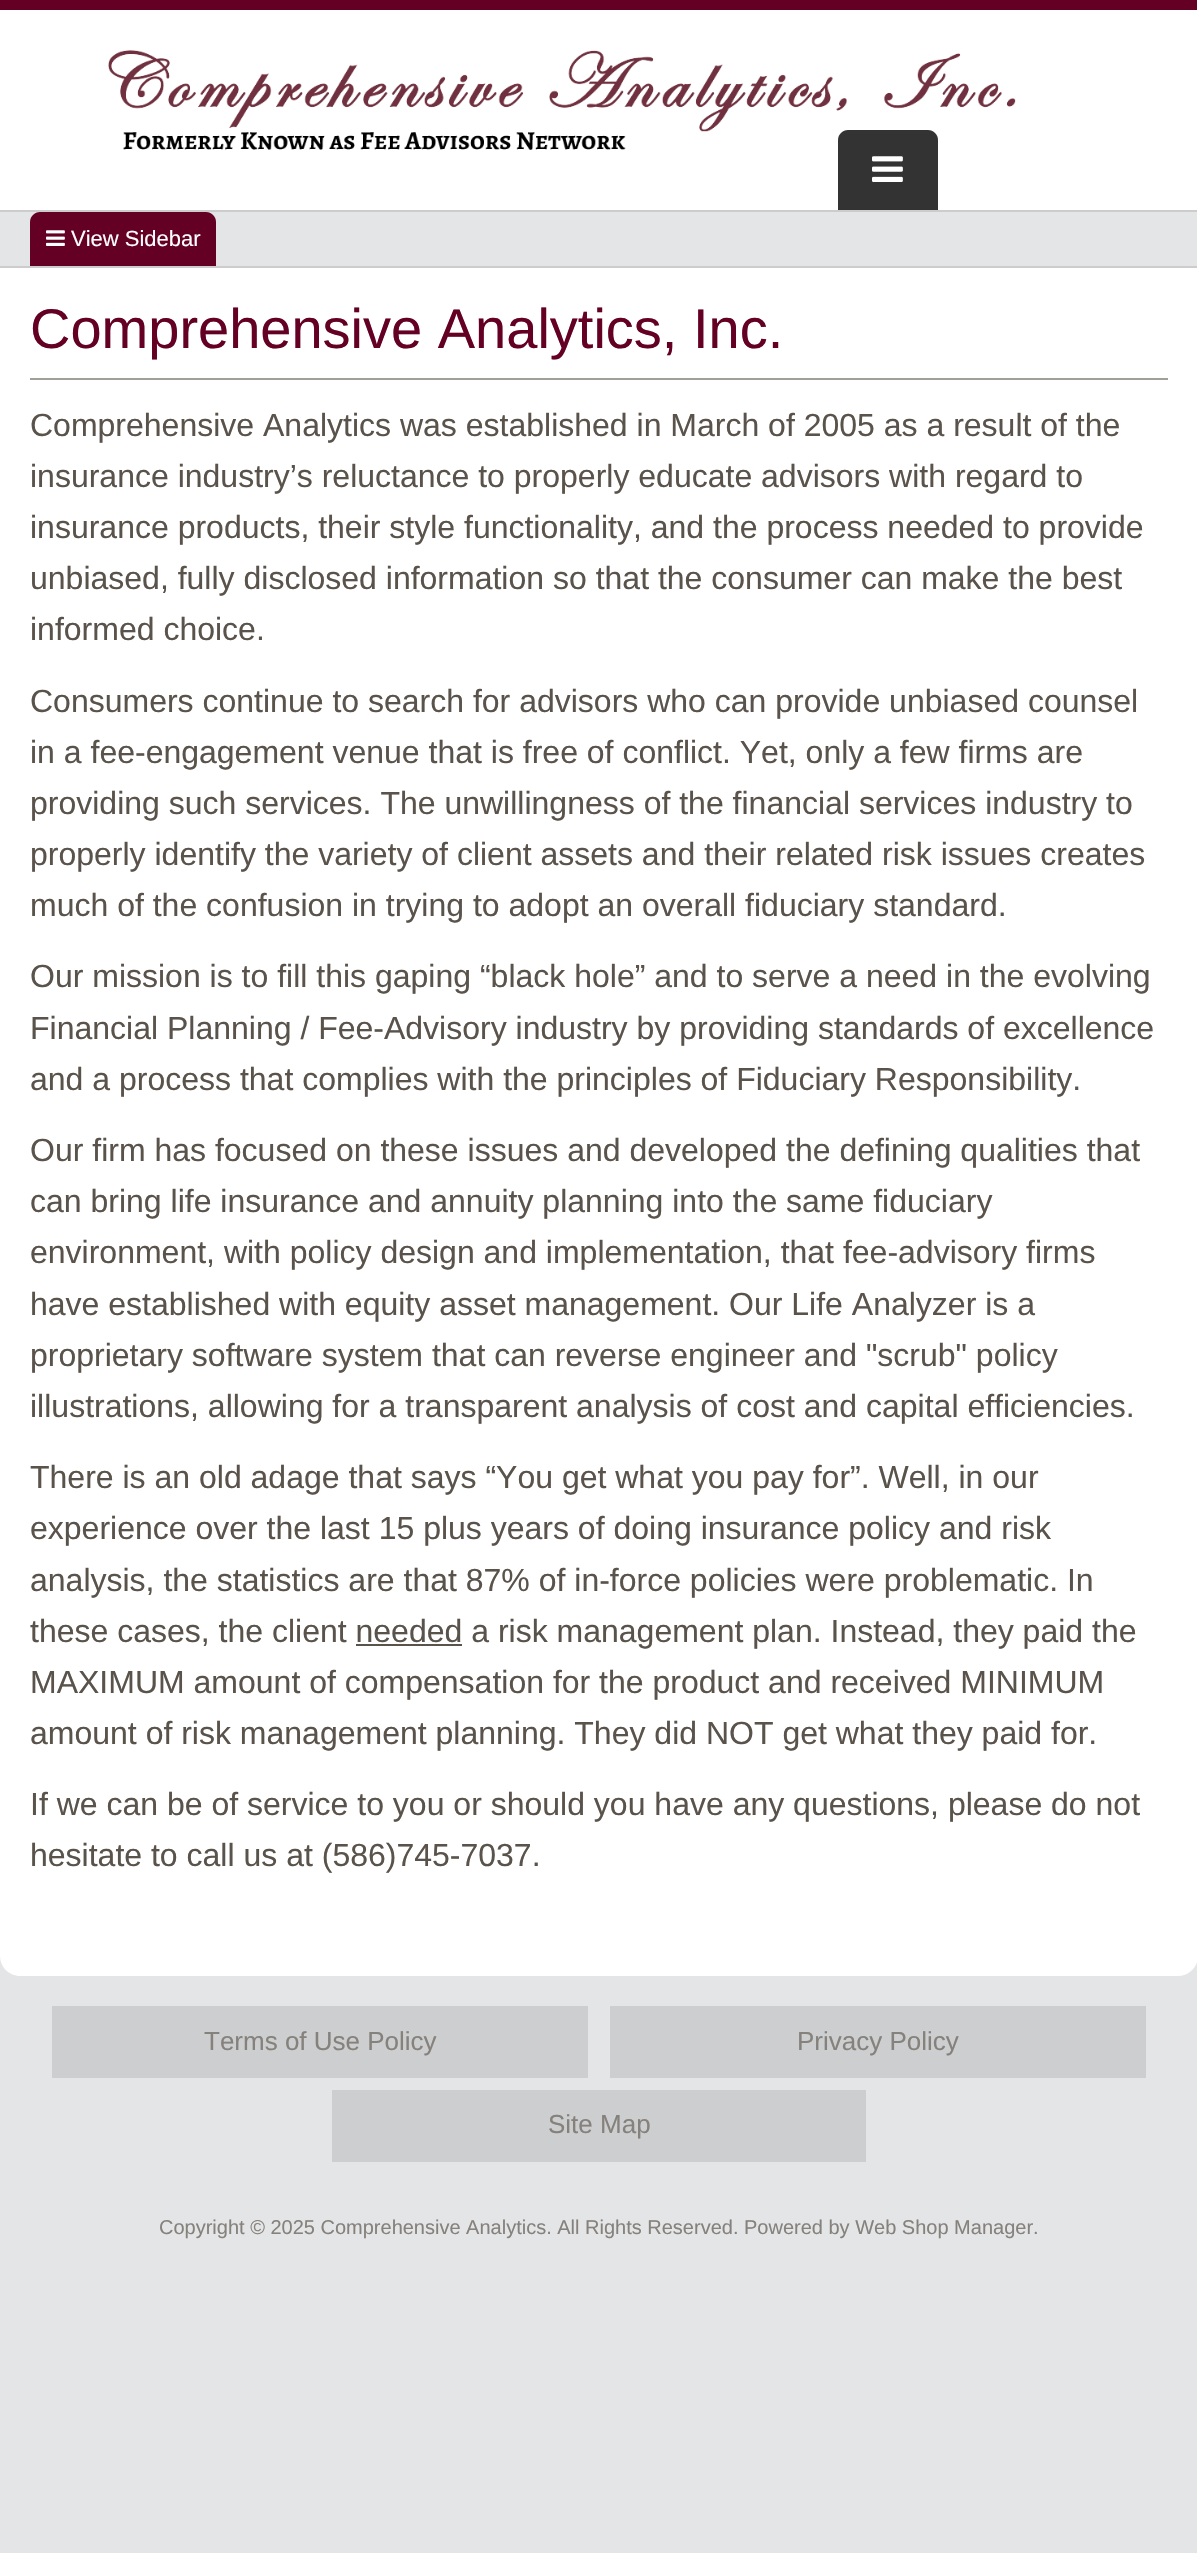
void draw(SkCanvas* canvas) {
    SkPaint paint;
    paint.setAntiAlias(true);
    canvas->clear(0xFFE4E5E6);
    paint.setColor(0xFF640023);
    canvas->drawRect(SkRect::MakeXYWH(0, 0, 1197, 10), paint);
    paint.setColor(0xFFFFFFFF);
    canvas->drawRect(SkRect::MakeXYWH(0, 10, 1197, 200), paint);
    paint.setColor(0xFFCCCCCC);
    canvas->drawRect(SkRect::MakeXYWH(0, 210, 1197, 2), paint);
    canvas->drawImageRect(SkImages::DeferredFromEncodedData(SkData::MakeFromFileName("img1.png")), SkRect::MakeXYWH(108, 50, 908, 100), SkSamplingOptions());
    paint.setColor(0xFF333333);
    canvas->drawPath(SkPathBuilder().moveTo(848, 130).lineTo(928, 130).cubicTo(933.5f, 130, 938, 134.5f, 938, 140).lineTo(938, 210).lineTo(838, 210).lineTo(838, 140).cubicTo(838, 134.5f, 842.5f, 130, 848, 130).close().detach(), paint);
    canvas->drawImageRect(SkImages::DeferredFromEncodedData(SkData::MakeFromFileName("img2.png")), SkRect::MakeXYWH(872, 156, 31, 26), SkSamplingOptions());
    paint.setColor(0xFFCCCCCC);
    canvas->drawRect(SkRect::MakeXYWH(0, 266, 1197, 2), paint);
    paint.setColor(0xFF640023);
    canvas->drawPath(SkPathBuilder().moveTo(40, 212).lineTo(206, 212).cubicTo(211.5f, 212, 216, 216.5f, 216, 222).lineTo(216, 266).lineTo(30, 266).lineTo(30, 222).cubicTo(30, 216.5f, 34.5f, 212, 40, 212).close().detach(), paint);
    canvas->drawImageRect(SkImages::DeferredFromEncodedData(SkData::MakeFromFileName("img3.png")), SkRect::MakeXYWH(46, 230, 19, 16), SkSamplingOptions());
    SkFont font1(fontMgr->matchFamilyStyle("Liberation Sans", SkFontStyle::Normal()), 22);
    font1.setSubpixel(true);
    paint.setColor(0xFFFFFFFF);
    canvas->drawString("View Sidebar", 71, 246, font1, paint);
    canvas->drawPath(SkPathBuilder().moveTo(0, 268).lineTo(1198, 268).lineTo(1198, 1956).cubicTo(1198, 1967, 1189, 1976, 1178, 1976).lineTo(20, 1976).cubicTo(9, 1976, 0, 1967, 0, 1956).close().detach(), paint);
    paint.setColor(0xFFA29E99);
    canvas->drawRect(SkRect::MakeXYWH(30, 378, 1138, 2), paint);
    SkFont font2(fontMgr->matchFamilyStyle("Liberation Sans", SkFontStyle::Normal()), 56);
    font2.setSubpixel(true);
    paint.setColor(0xFF640023);
    canvas->drawString("Comprehensive Analytics, Inc.", 30, 348, font2, paint);
    SkFont font3(fontMgr->matchFamilyStyle("Liberation Sans", SkFontStyle::Normal()), 32);
    font3.setSubpixel(true);
    paint.setColor(0xFF5A534B);
    canvas->drawString("Comprehensive Analytics was established in March of 2005 as a result of the", 30, 436, font3, paint);
    canvas->drawString("insurance industry’s reluctance to properly educate advisors with regard to", 30, 487, font3, paint);
    canvas->drawString("insurance products, their style functionality, and the process needed to provide", 30, 538, font3, paint);
    canvas->drawString("unbiased, fully disclosed information so that the consumer can make the best", 30, 589, font3, paint);
    canvas->drawString("informed choice.", 30, 640, font3, paint);
    canvas->drawString("Consumers continue to search for advisors who can provide unbiased counsel", 30, 712, font3, paint);
    canvas->drawString("in a fee-engagement venue that is free of conflict. Yet, only a few firms are", 30, 763, font3, paint);
    canvas->drawString("providing such services. The unwillingness of the financial services industry to", 30, 814, font3, paint);
    canvas->drawString("properly identify the variety of client assets and their related risk issues creates", 30, 865, font3, paint);
    canvas->drawString("much of the confusion in trying to adopt an overall fiduciary standard.", 30, 916, font3, paint);
    canvas->drawString("Our mission is to fill this gaping “black hole” and to serve a need in the evolving", 30, 987, font3, paint);
    canvas->drawString("Financial Planning / Fee-Advisory industry by providing standards of excellence", 30, 1039, font3, paint);
    canvas->drawString("and a process that complies with the principles of Fiduciary Responsibility.", 30, 1090, font3, paint);
    canvas->drawString("Our firm has focused on these issues and developed the defining qualities that", 30, 1161, font3, paint);
    canvas->drawString("can bring life insurance and annuity planning into the same fiduciary", 30, 1212, font3, paint);
    canvas->drawString("environment, with policy design and implementation, that fee-advisory firms", 30, 1263, font3, paint);
    canvas->drawString("have established with equity asset management. Our Life Analyzer is a", 30, 1315, font3, paint);
    canvas->drawString("proprietary software system that can reverse engineer and \"scrub\" policy", 30, 1366, font3, paint);
    canvas->drawString("illustrations, allowing for a transparent analysis of cost and capital efficiencies.", 30, 1417, font3, paint);
    canvas->drawString("There is an old adage that says “You get what you pay for”. Well, in our", 30, 1488, font3, paint);
    canvas->drawString("experience over the last 15 plus years of doing insurance policy and risk", 30, 1539, font3, paint);
    canvas->drawString("analysis, the statistics are that 87% of in-force policies were problematic. In", 30, 1591, font3, paint);
    canvas->drawString("these cases, the client needed a risk management plan. Instead, they paid the", 30, 1642, font3, paint);
    canvas->drawRect(SkRect::MakeXYWH(356, 1644, 106, 2), paint);
    canvas->drawString("MAXIMUM amount of compensation for the product and received MINIMUM", 30, 1693, font3, paint);
    canvas->drawString("amount of risk management planning. They did NOT get what they paid for.", 30, 1744, font3, paint);
    canvas->drawString("If we can be of service to you or should you have any questions, please do not", 30, 1815, font3, paint);
    canvas->drawString("hesitate to call us at (586)745-7037.", 30, 1866, font3, paint);
    paint.setColor(0xFFCDCECF);
    canvas->drawRect(SkRect::MakeXYWH(52, 2006, 536, 72), paint);
    SkFont font4(fontMgr->matchFamilyStyle("Liberation Sans", SkFontStyle::Normal()), 26);
    font4.setSubpixel(true);
    paint.setColor(0xFF85817C);
    canvas->drawString("Terms of Use Policy", 204, 2050, font4, paint);
    paint.setColor(0xFFCDCECF);
    canvas->drawRect(SkRect::MakeXYWH(610, 2006, 536, 72), paint);
    paint.setColor(0xFF85817C);
    canvas->drawString("Privacy Policy", 797, 2050, font4, paint);
    paint.setColor(0xFFCDCECF);
    canvas->drawRect(SkRect::MakeXYWH(332, 2090, 534, 72), paint);
    paint.setColor(0xFF85817C);
    canvas->drawString("Site Map", 548, 2133, font4, paint);
    SkFont font5(fontMgr->matchFamilyStyle("Liberation Sans", SkFontStyle::Normal()), 20);
    font5.setSubpixel(true);
    canvas->drawString("Copyright © 2025 Comprehensive Analytics. All Rights Reserved. Powered by Web Shop Manager.", 159, 2234, font5, paint);
}
